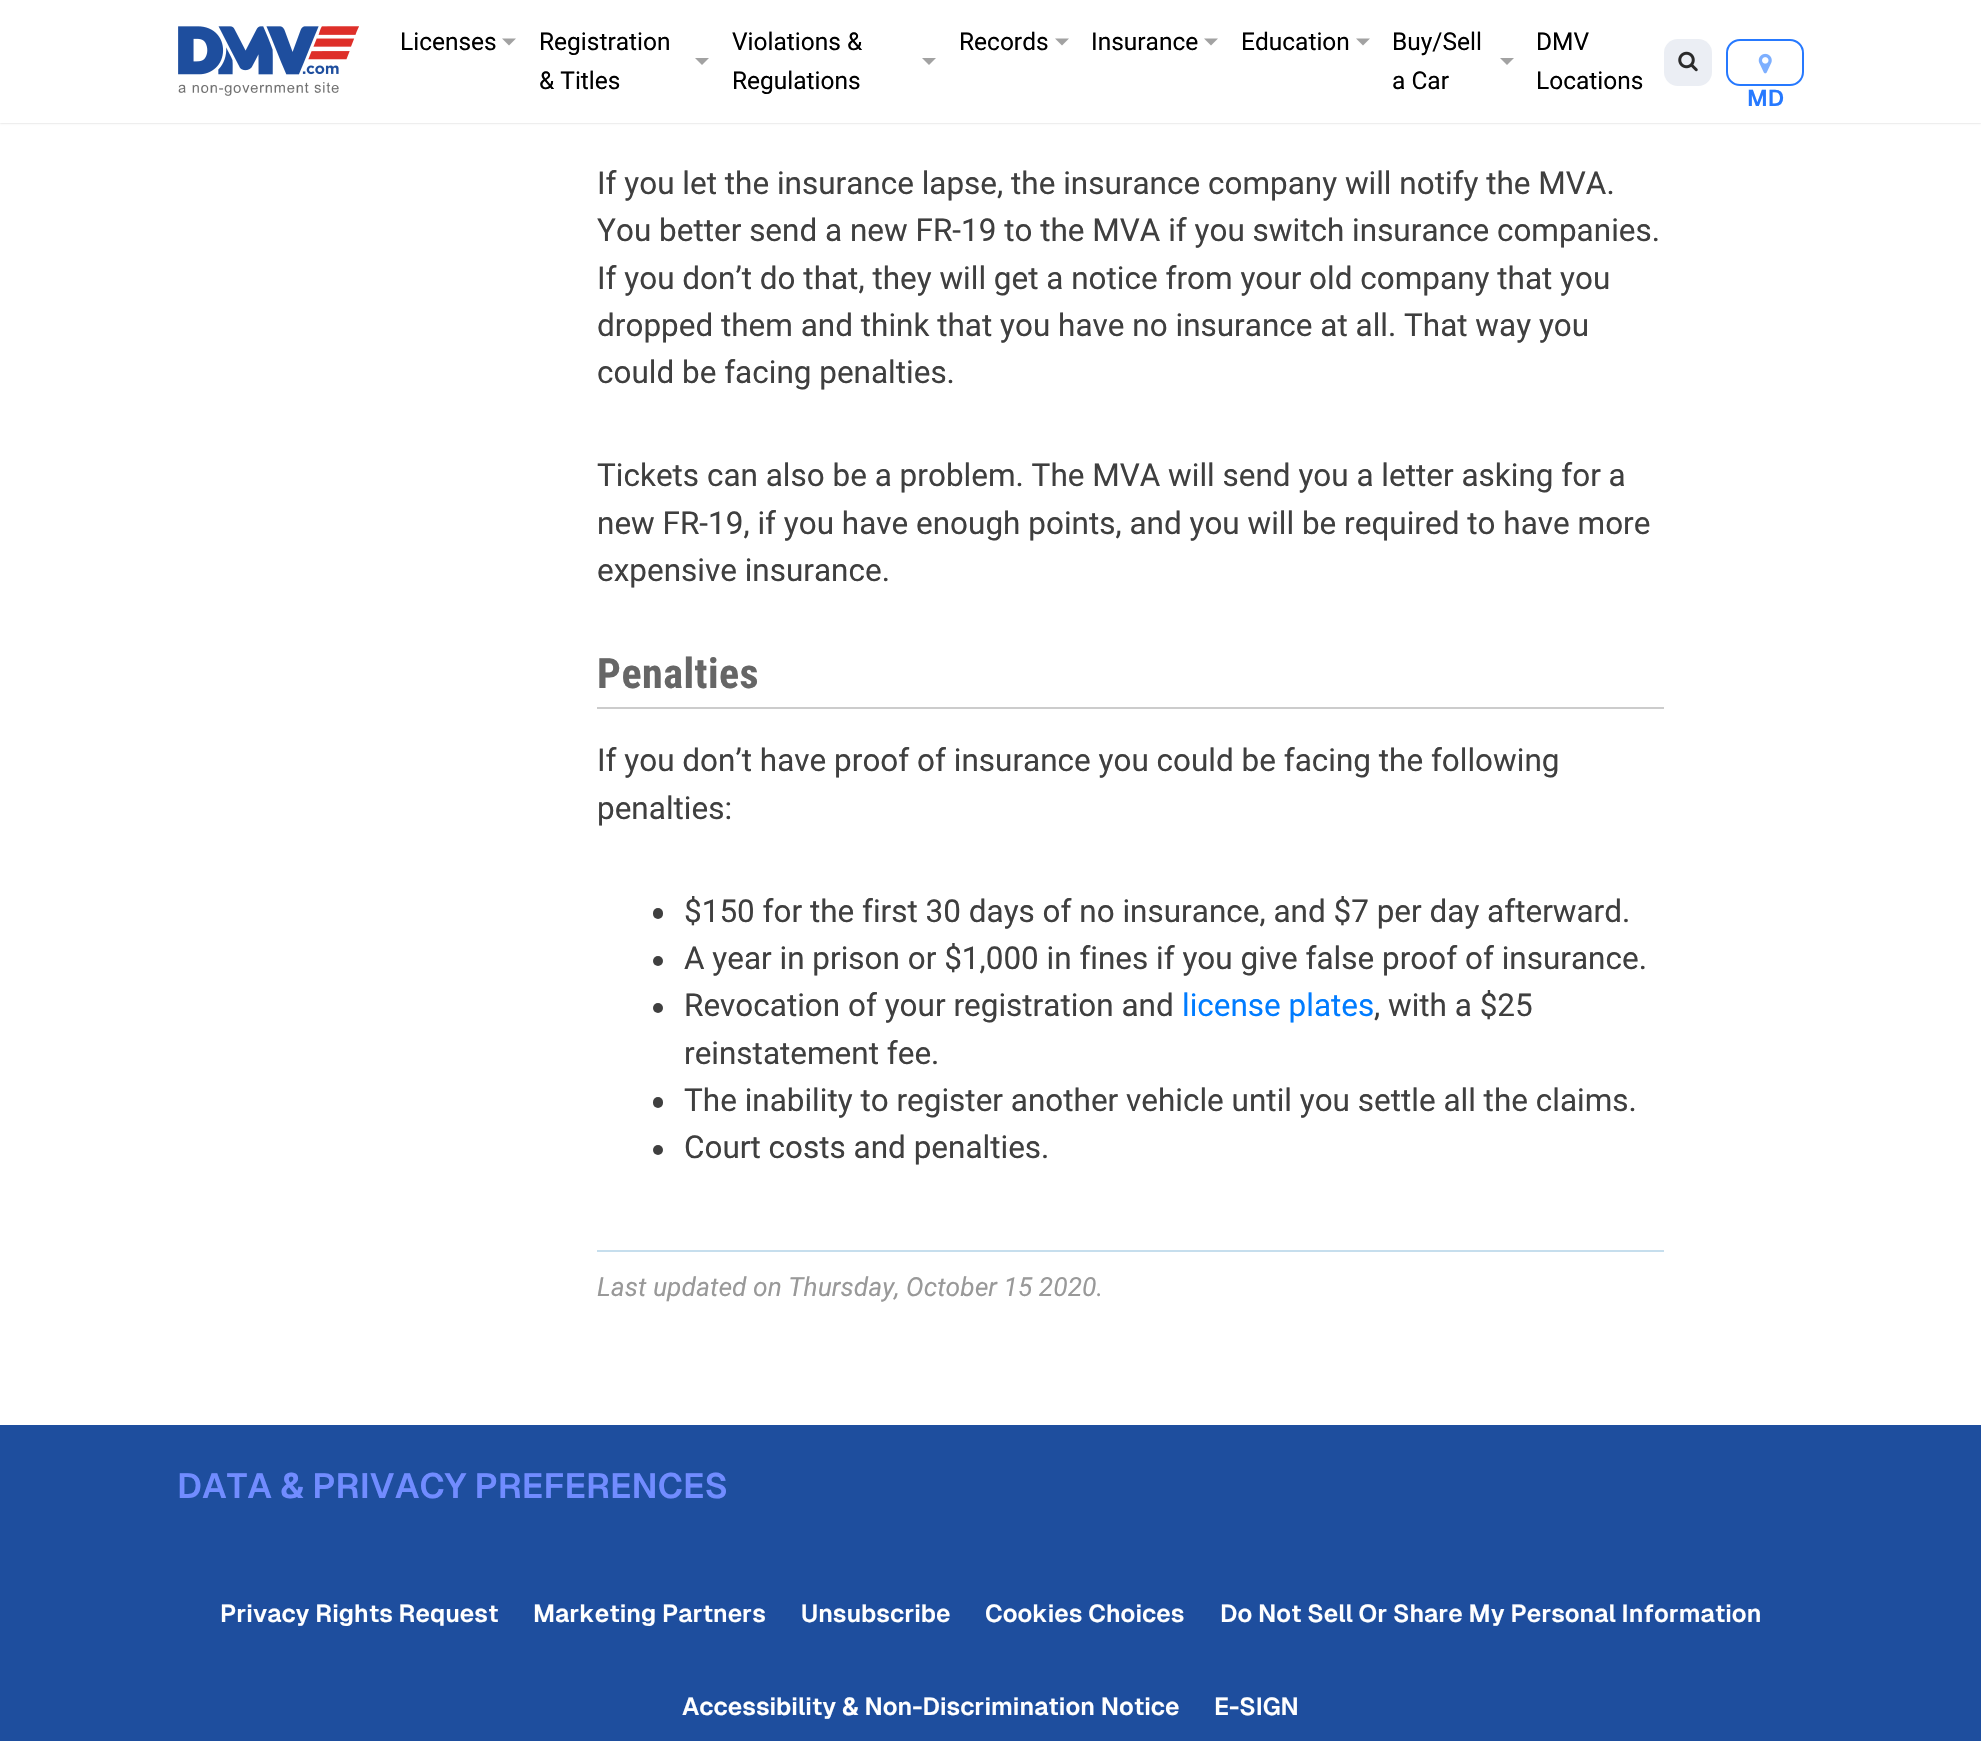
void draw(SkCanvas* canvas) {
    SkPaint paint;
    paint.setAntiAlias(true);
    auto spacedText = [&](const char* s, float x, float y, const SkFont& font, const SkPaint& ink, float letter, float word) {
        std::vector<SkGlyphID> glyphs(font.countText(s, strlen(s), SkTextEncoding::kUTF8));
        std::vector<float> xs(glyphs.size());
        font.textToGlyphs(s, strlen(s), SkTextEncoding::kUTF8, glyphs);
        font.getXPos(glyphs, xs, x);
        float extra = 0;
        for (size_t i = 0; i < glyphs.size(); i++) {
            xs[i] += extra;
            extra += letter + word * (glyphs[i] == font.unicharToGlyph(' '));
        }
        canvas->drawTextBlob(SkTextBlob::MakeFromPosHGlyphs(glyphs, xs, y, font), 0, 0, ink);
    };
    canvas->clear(0xFFFFFFFF);
    paint.setColor(0x33000000);
    paint.setMaskFilter(SkMaskFilter::MakeBlur(kNormal_SkBlurStyle, 1));
    canvas->drawRect(SkRect::MakeXYWH(0, 0, 1981, 123), paint);
    paint.setMaskFilter(nullptr);
    paint.setColor(0xFFFFFFFF);
    canvas->drawRect(SkRect::MakeXYWH(0, 0, 1981, 123), paint);
    canvas->drawImageRect(SkImages::DeferredFromEncodedData(SkData::MakeFromFileName("img1.png")), SkRect::MakeXYWH(178, 26, 181, 70), SkSamplingOptions());
    SkFont font1(fontMgr->matchFamilyStyle("Roboto", SkFontStyle::Normal()), 24.5f);
    font1.setSubpixel(true);
    paint.setColor(0xFF000000);
    canvas->drawString("Licenses", 400, 50, font1, paint);
    paint.setColor(0xFFA2A2A2);
    canvas->drawPath(SkPathBuilder().moveTo(502, 38.5f).lineTo(516, 38.5f).lineTo(509, 45.5f).close().detach(), paint);
    paint.setColor(0xFF000000);
    canvas->drawString("Registration", 539, 50, font1, paint);
    paint.setColor(0xFFA2A2A2);
    canvas->drawPath(SkPathBuilder().moveTo(695, 58).lineTo(709, 58).lineTo(702, 65).close().detach(), paint);
    paint.setColor(0xFF000000);
    canvas->drawString("& Titles", 539, 89, font1, paint);
    canvas->drawString("Violations &", 732, 50, font1, paint);
    paint.setColor(0xFFA2A2A2);
    canvas->drawPath(SkPathBuilder().moveTo(922, 58).lineTo(936, 58).lineTo(929, 65).close().detach(), paint);
    paint.setColor(0xFF000000);
    canvas->drawString("Regulations", 732, 89, font1, paint);
    canvas->drawString("Records", 959, 50, font1, paint);
    paint.setColor(0xFFA2A2A2);
    canvas->drawPath(SkPathBuilder().moveTo(1055, 38.5f).lineTo(1069, 38.5f).lineTo(1062, 45.5f).close().detach(), paint);
    paint.setColor(0xFF000000);
    canvas->drawString("Insurance", 1091, 50, font1, paint);
    paint.setColor(0xFFA2A2A2);
    canvas->drawPath(SkPathBuilder().moveTo(1204, 38.5f).lineTo(1218, 38.5f).lineTo(1211, 45.5f).close().detach(), paint);
    paint.setColor(0xFF000000);
    canvas->drawString("Education", 1241, 50, font1, paint);
    paint.setColor(0xFFA2A2A2);
    canvas->drawPath(SkPathBuilder().moveTo(1356, 38.5f).lineTo(1370, 38.5f).lineTo(1363, 45.5f).close().detach(), paint);
    paint.setColor(0xFF000000);
    canvas->drawString("Buy/Sell", 1392, 50, font1, paint);
    paint.setColor(0xFFA2A2A2);
    canvas->drawPath(SkPathBuilder().moveTo(1500, 58).lineTo(1514, 58).lineTo(1507, 65).close().detach(), paint);
    paint.setColor(0xFF000000);
    canvas->drawString("a Car", 1392, 89, font1, paint);
    canvas->drawString("DMV", 1536, 50, font1, paint);
    canvas->drawString("Locations", 1536, 89, font1, paint);
    paint.setColor(0xFFEBEEF4);
    canvas->drawRoundRect(SkRect::MakeXYWH(1664, 39, 48, 47), 14, 14, paint);
    canvas->drawImageRect(SkImages::DeferredFromEncodedData(SkData::MakeFromFileName("img2.png")), SkRect::MakeXYWH(1678, 51, 20, 21), SkSamplingOptions());
    paint.setStyle(SkPaint::kStroke_Style);
    paint.setStrokeWidth(2);
    paint.setColor(0xFF2679FF);
    canvas->drawRoundRect(SkRect::MakeXYWH(1727, 40, 76, 45), 13, 13, paint);
    canvas->drawImageRect(SkImages::DeferredFromEncodedData(SkData::MakeFromFileName("img3.png")), SkRect::MakeXYWH(1758, 53, 14, 21), SkSamplingOptions());
    SkFont font2(fontMgr->matchFamilyStyle("Geist", SkFontStyle(600, SkFontStyle::kNormal_Width, SkFontStyle::kUpright_Slant)), 23);
    font2.setSubpixel(true);
    paint.setStyle(SkPaint::kFill_Style);
    canvas->drawString("MD", 1747, 106, font2, paint);
    SkFont font3(fontMgr->matchFamilyStyle("Roboto", SkFontStyle::Normal()), 31.5f);
    font3.setSubpixel(true);
    paint.setColor(0xFF3F3F3F);
    canvas->drawString("If you let the insurance lapse, the insurance company will notify the MVA.", 597, 194, font3, paint);
    canvas->drawString("You better send a new FR-19 to the MVA if you switch insurance companies.", 597, 241, font3, paint);
    canvas->drawString("If you don’t do that, they will get a notice from your old company that you", 597, 289, font3, paint);
    canvas->drawString("dropped them and think that you have no insurance at all. That way you", 597, 336, font3, paint);
    canvas->drawString("could be facing penalties.", 597, 383, font3, paint);
    canvas->drawString("Tickets can also be a problem. The MVA will send you a letter asking for a", 597, 486, font3, paint);
    canvas->drawString("new FR-19, if you have enough points, and you will be required to have more", 597, 534, font3, paint);
    canvas->drawString("expensive insurance.", 597, 581, font3, paint);
    paint.setColor(0xFFCCCCCC);
    canvas->drawRect(SkRect::MakeXYWH(597, 707, 1067, 2), paint);
    SkFont font4(fontMgr->matchFamilyStyle("Roboto Condensed", SkFontStyle::Bold()), 42);
    font4.setSubpixel(true);
    paint.setColor(0xFF666666);
    spacedText("Penalties", 597, 688, font4, paint, 0.5f, 0);
    paint.setColor(0xFF3F3F3F);
    canvas->drawString("If you don’t have proof of insurance you could be facing the following", 597, 771, font3, paint);
    canvas->drawString("penalties:", 597, 819, font3, paint);
    canvas->drawRoundRect(SkRect::MakeXYWH(653, 908, 10, 11), 5, 5, paint);
    canvas->drawString("$150 for the first 30 days of no insurance, and $7 per day afterward.", 684, 922, font3, paint);
    canvas->drawCircle(658, 961, 5, paint);
    canvas->drawString("A year in prison or $1,000 in fines if you give false proof of insurance.", 684, 969, font3, paint);
    canvas->drawCircle(658, 1008, 5, paint);
    canvas->drawString("Revocation of your registration and", 684, 1016, font3, paint);
    paint.setColor(0xFF007CFF);
    canvas->drawString("license plates", 1182, 1016, font3, paint);
    paint.setColor(0xFF3F3F3F);
    canvas->drawString(", with a $25", 1374, 1016, font3, paint);
    canvas->drawString("reinstatement fee.", 684, 1064, font3, paint);
    canvas->drawRoundRect(SkRect::MakeXYWH(653, 1097, 10, 11), 5, 5, paint);
    canvas->drawString("The inability to register another vehicle until you settle all the claims.", 684, 1111, font3, paint);
    canvas->drawCircle(658, 1150, 5, paint);
    canvas->drawString("Court costs and penalties.", 684, 1158, font3, paint);
    paint.setColor(0xFFC6DEED);
    canvas->drawRect(SkRect::MakeXYWH(597, 1250, 1067, 2), paint);
    SkFont font5(fontMgr->matchFamilyStyle("Roboto", SkFontStyle::Italic()), 26.25f);
    font5.setSubpixel(true);
    paint.setColor(0xFF999999);
    canvas->drawString("Last updated on Thursday, October 15 2020.", 597, 1296, font5, paint);
    paint.setColor(0xFF1E4E9E);
    canvas->drawRect(SkRect::MakeXYWH(0, 1425, 1981, 316), paint);
    SkFont font6(fontMgr->matchFamilyStyle("Geist", SkFontStyle(600, SkFontStyle::kNormal_Width, SkFontStyle::kUpright_Slant)), 35);
    font6.setSubpixel(true);
    paint.setColor(0xFF718CFF);
    canvas->drawString("DATA & PRIVACY PREFERENCES", 177, 1498, font6, paint);
    SkFont font7(fontMgr->matchFamilyStyle("Geist", SkFontStyle(600, SkFontStyle::kNormal_Width, SkFontStyle::kUpright_Slant)), 24.5f);
    font7.setSubpixel(true);
    paint.setColor(0xFFFFFFFF);
    canvas->drawString("Privacy Rights Request", 220, 1622, font7, paint);
    canvas->drawString("Marketing Partners", 533, 1622, font7, paint);
    canvas->drawString("Unsubscribe", 801, 1622, font7, paint);
    canvas->drawString("Cookies Choices", 985, 1622, font7, paint);
    canvas->drawString("Do Not Sell Or Share My Personal Information", 1220, 1622, font7, paint);
    canvas->drawString("Accessibility & Non-Discrimination Notice", 682, 1715, font7, paint);
    canvas->drawString("E-SIGN", 1214, 1715, font7, paint);
}
